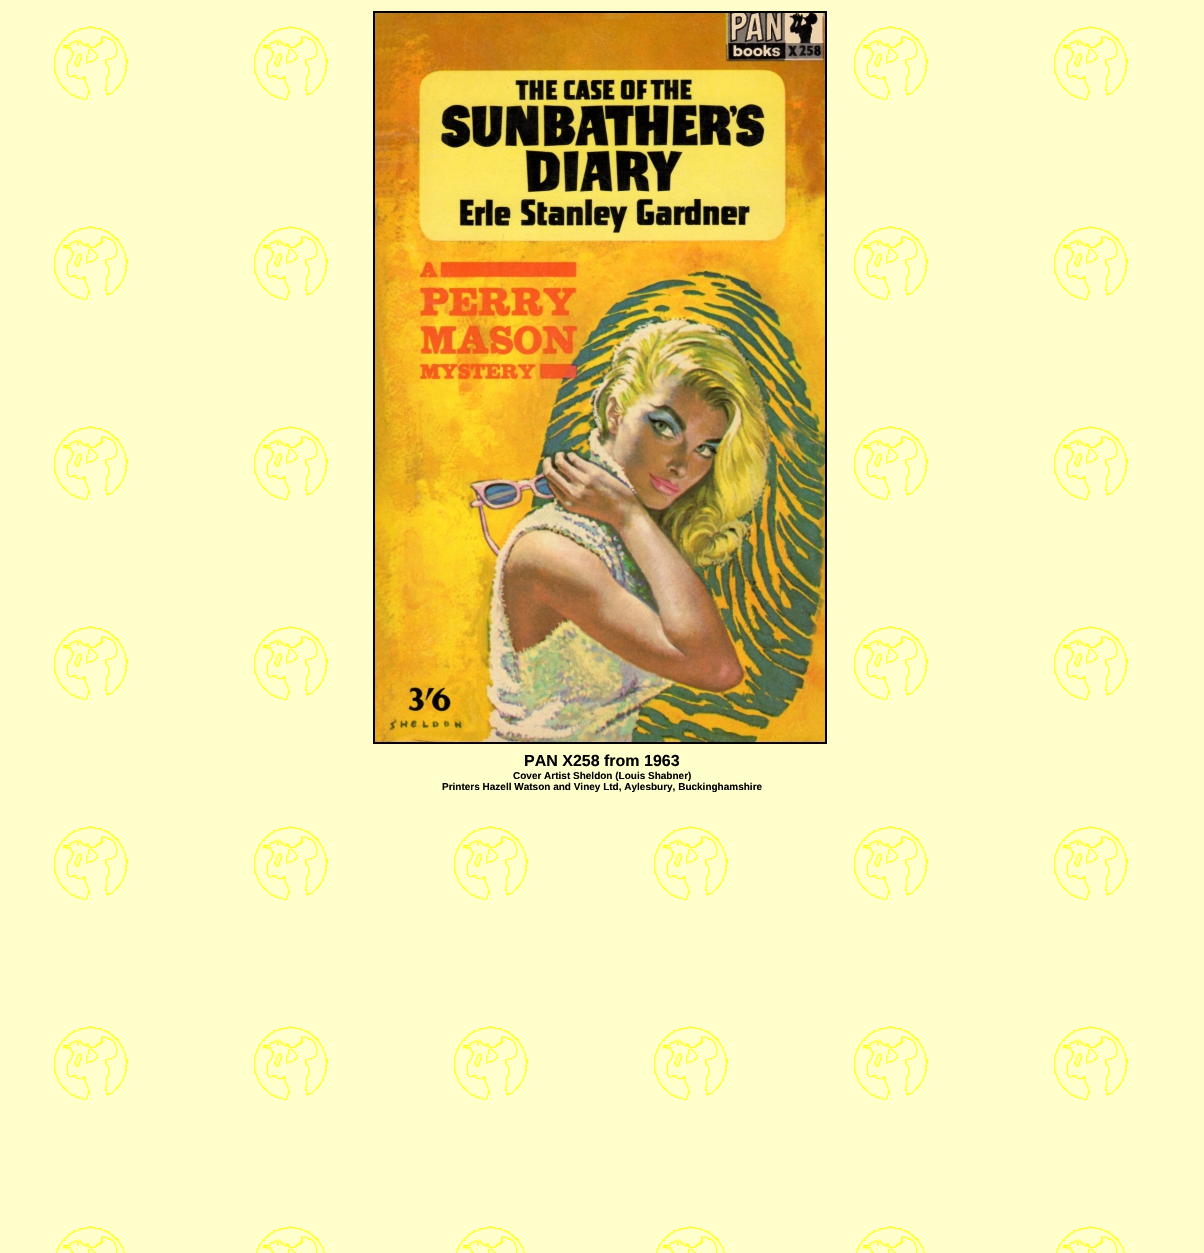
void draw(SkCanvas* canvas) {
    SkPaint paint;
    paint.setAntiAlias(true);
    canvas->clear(0xFFFFFFCC);
    canvas->drawImageRect(SkImages::DeferredFromEncodedData(SkData::MakeFromFileName("img1.png")), SkRect::MakeXYWH(54, 26, 1074, 1227), SkSamplingOptions());
    canvas->drawImageRect(SkImages::DeferredFromEncodedData(SkData::MakeFromFileName("img2.png")), SkRect::MakeXYWH(373, 11, 454, 733), SkSamplingOptions());
    SkFont font1(fontMgr->matchFamilyStyle("Liberation Sans", SkFontStyle::Bold()), 16);
    font1.setSubpixel(true);
    paint.setColor(0xFF000000);
    canvas->drawString("PAN X258 from 1963", 524, 766, font1, paint);
    SkFont font2(fontMgr->matchFamilyStyle("Liberation Sans", SkFontStyle::Bold()), 10);
    font2.setSubpixel(true);
    canvas->drawString("Cover Artist Sheldon (Louis Shabner)", 513, 779, font2, paint);
    canvas->drawString("Printers Hazell Watson and Viney Ltd, Aylesbury, Buckinghamshire", 442, 790, font2, paint);
}
